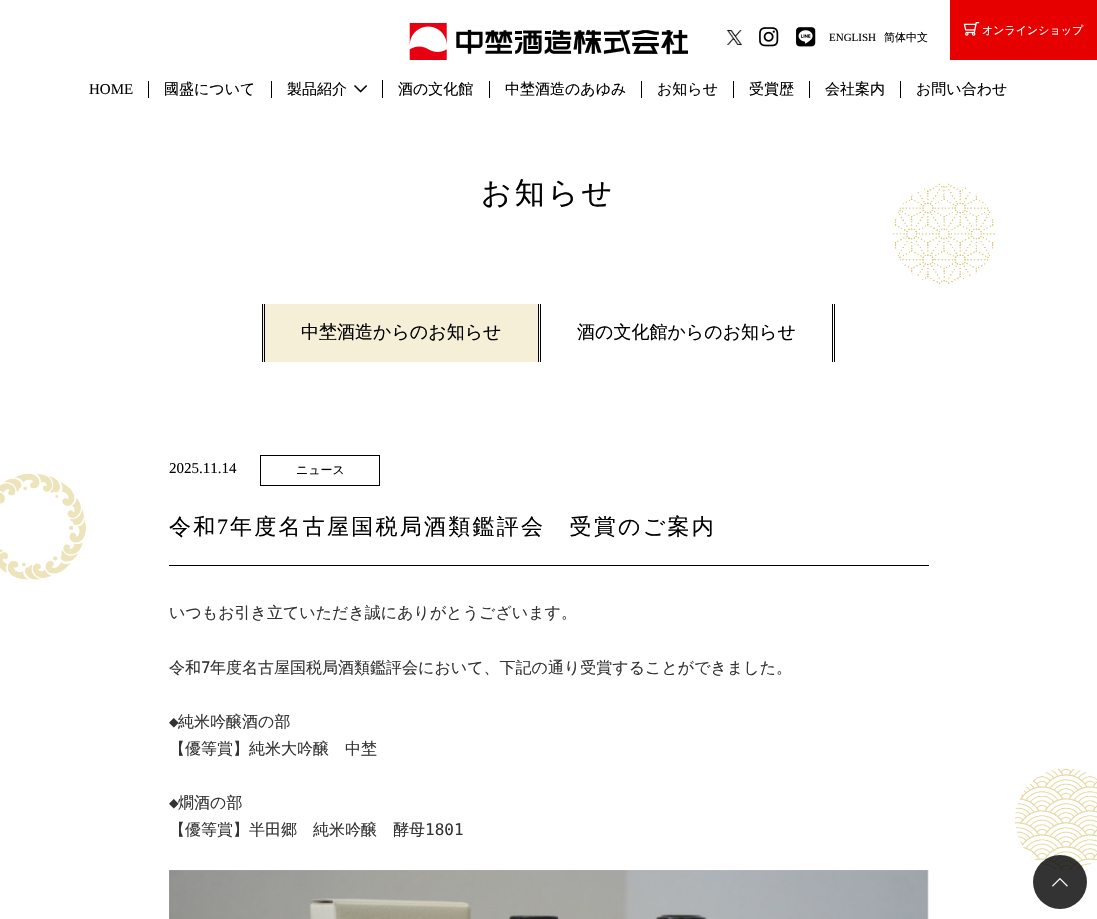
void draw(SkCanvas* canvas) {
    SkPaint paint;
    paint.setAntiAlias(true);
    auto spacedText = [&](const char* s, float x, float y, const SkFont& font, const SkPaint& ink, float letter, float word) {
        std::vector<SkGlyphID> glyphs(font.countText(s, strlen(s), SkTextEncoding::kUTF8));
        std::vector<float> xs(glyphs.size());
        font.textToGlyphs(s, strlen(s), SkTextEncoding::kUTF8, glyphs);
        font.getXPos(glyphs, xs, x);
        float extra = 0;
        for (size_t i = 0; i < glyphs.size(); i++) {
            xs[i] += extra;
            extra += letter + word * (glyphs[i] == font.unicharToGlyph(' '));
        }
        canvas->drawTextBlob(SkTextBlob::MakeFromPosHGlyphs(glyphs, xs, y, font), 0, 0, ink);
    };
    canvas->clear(0xFFFFFFFF);
    canvas->drawImageRect(SkImages::DeferredFromEncodedData(SkData::MakeFromFileName("img1.png")), SkRect::MakeXYWH(409, 23, 279, 37), SkSamplingOptions());
    paint.setColor(0xFFE60000);
    canvas->drawRect(SkRect::MakeXYWH(950, 0, 147, 60), paint);
    canvas->drawImageRect(SkImages::DeferredFromEncodedData(SkData::MakeFromFileName("img2.png")), SkRect::MakeXYWH(963, 22, 17, 14), SkSamplingOptions());
    SkFont font1(fontMgr->matchFamilyStyle("WenQuanYi Zen Hei", SkFontStyle(500, SkFontStyle::kNormal_Width, SkFontStyle::kUpright_Slant)), 11);
    font1.setSubpixel(true);
    paint.setColor(0xFFFFFFFF);
    canvas->drawString("オンラインショップ", 982, 34, font1, paint);
    canvas->drawImageRect(SkImages::DeferredFromEncodedData(SkData::MakeFromFileName("img3.png")), SkRect::MakeXYWH(727, 30, 15, 15), SkSamplingOptions());
    canvas->drawImageRect(SkImages::DeferredFromEncodedData(SkData::MakeFromFileName("img4.png")), SkRect::MakeXYWH(759, 27, 20, 20), SkSamplingOptions());
    canvas->drawImageRect(SkImages::DeferredFromEncodedData(SkData::MakeFromFileName("img5.png")), SkRect::MakeXYWH(796, 27, 20, 20), SkSamplingOptions());
    SkFont font2(fontMgr->matchFamilyStyle("Liberation Serif", SkFontStyle::Normal()), 11);
    font2.setSubpixel(true);
    paint.setColor(0xFF000000);
    canvas->drawString("ENGLISH", 829, 41, font2, paint);
    canvas->drawString("简体中文", 884, 41, font1, paint);
    canvas->drawRect(SkRect::MakeXYWH(148, 81, 1, 17), paint);
    SkFont font3(fontMgr->matchFamilyStyle("Liberation Serif", SkFontStyle::Normal()), 15);
    font3.setSubpixel(true);
    canvas->drawString("HOME", 89, 94, font3, paint);
    canvas->drawRect(SkRect::MakeXYWH(271, 81, 1, 17), paint);
    SkFont font4(fontMgr->matchFamilyStyle("WenQuanYi Zen Hei", SkFontStyle(500, SkFontStyle::kNormal_Width, SkFontStyle::kUpright_Slant)), 15);
    font4.setSubpixel(true);
    canvas->drawString("國盛について", 164, 94, font4, paint);
    canvas->drawRect(SkRect::MakeXYWH(382, 80, 1, 18), paint);
    canvas->drawString("製品紹介", 287, 94, font4, paint);
    canvas->drawImageRect(SkImages::DeferredFromEncodedData(SkData::MakeFromFileName("img6.png")), SkRect::MakeXYWH(354, 85, 13, 8), SkSamplingOptions());
    canvas->drawRect(SkRect::MakeXYWH(489, 81, 1, 17), paint);
    canvas->drawString("酒の文化館", 398, 94, font4, paint);
    canvas->drawRect(SkRect::MakeXYWH(641, 81, 1, 17), paint);
    canvas->drawString("中埜酒造のあゆみ", 505, 94, font4, paint);
    canvas->drawRect(SkRect::MakeXYWH(733, 81, 1, 17), paint);
    canvas->drawString("お知らせ", 657, 94, font4, paint);
    canvas->drawRect(SkRect::MakeXYWH(809, 81, 1, 17), paint);
    canvas->drawString("受賞歴", 749, 94, font4, paint);
    canvas->drawRect(SkRect::MakeXYWH(900, 81, 1, 17), paint);
    canvas->drawString("会社案内", 825, 94, font4, paint);
    canvas->drawString("お問い合わせ", 916, 94, font4, paint);
    canvas->drawImageRect(SkImages::DeferredFromEncodedData(SkData::MakeFromFileName("img7.png")), SkRect::MakeXYWH(0, 183, 1097, 688), SkSamplingOptions());
    SkFont font5(fontMgr->matchFamilyStyle("WenQuanYi Zen Hei", SkFontStyle(500, SkFontStyle::kNormal_Width, SkFontStyle::kUpright_Slant)), 30);
    font5.setSubpixel(true);
    spacedText("お知らせ", 481, 203, font5, paint, 3, 0);
    paint.setColor(0xFFF5EFD7);
    canvas->drawRect(SkRect::MakeXYWH(263, 304, 275, 58), paint);
    paint.setColor(0xFF000000);
    canvas->drawRect(SkRect::MakeXYWH(262, 304, 1, 58), paint);
    canvas->drawRect(SkRect::MakeXYWH(264, 304, 1, 58), paint);
    SkFont font6(fontMgr->matchFamilyStyle("WenQuanYi Zen Hei", SkFontStyle(500, SkFontStyle::kNormal_Width, SkFontStyle::kUpright_Slant)), 18);
    font6.setSubpixel(true);
    canvas->drawString("中埜酒造からのお知らせ", 301, 338, font6, paint);
    canvas->drawRect(SkRect::MakeXYWH(832, 304, 1, 58), paint);
    canvas->drawRect(SkRect::MakeXYWH(834, 304, 1, 58), paint);
    canvas->drawRect(SkRect::MakeXYWH(538, 304, 1, 58), paint);
    canvas->drawRect(SkRect::MakeXYWH(540, 304, 1, 58), paint);
    canvas->drawString("酒の文化館からのお知らせ", 577, 338, font6, paint);
    canvas->drawString("2025.11.14", 169, 473, font3, paint);
    paint.setStyle(SkPaint::kStroke_Style);
    paint.setStrokeWidth(1);
    canvas->drawRect(SkRect::MakeXYWH(260.5f, 455.5f, 119, 30), paint);
    SkFont font7(fontMgr->matchFamilyStyle("WenQuanYi Zen Hei", SkFontStyle(500, SkFontStyle::kNormal_Width, SkFontStyle::kUpright_Slant)), 12);
    font7.setSubpixel(true);
    paint.setStyle(SkPaint::kFill_Style);
    canvas->drawString("ニュース", 296, 474, font7, paint);
    canvas->drawRect(SkRect::MakeXYWH(169, 565, 760, 1), paint);
    SkFont font8(fontMgr->matchFamilyStyle("WenQuanYi Zen Hei", SkFontStyle(500, SkFontStyle::kNormal_Width, SkFontStyle::kUpright_Slant)), 22);
    font8.setSubpixel(true);
    spacedText("令和", 169, 534, font8, paint, 2.25f, 0);
    SkFont font9(fontMgr->matchFamilyStyle("Liberation Serif", SkFontStyle::Normal()), 22);
    font9.setSubpixel(true);
    spacedText("7", 217, 534, font9, paint, 2.25f, 0);
    spacedText("年度名古屋国税局酒類鑑評会　受賞のご案内", 230, 534, font8, paint, 2.25f, 0);
    SkFont font10(fontMgr->matchFamilyStyle("WenQuanYi Zen Hei", SkFontStyle(500, SkFontStyle::kNormal_Width, SkFontStyle::kUpright_Slant)), 16);
    font10.setSubpixel(true);
    paint.setColor(0xFF333333);
    canvas->drawString("いつもお引き立ていただき誠にありがとうございます。", 169, 618, font10, paint);
    canvas->drawString("令和", 169, 673, font10, paint);
    SkFont font11(fontMgr->matchFamilyStyle("DejaVu Sans Mono", SkFontStyle::Normal()), 16);
    font11.setSubpixel(true);
    canvas->drawString("7", 201, 673, font11, paint);
    canvas->drawString("年度名古屋国税局酒類鑑評会において、下記の通り受賞することができました。", 210, 673, font10, paint);
    canvas->drawString("◆", 169, 727, font11, paint);
    canvas->drawString("純米吟醸酒の部", 178, 727, font10, paint);
    canvas->drawString("【優等賞】純米大吟醸　中埜", 169, 754, font10, paint);
    canvas->drawString("◆", 169, 808, font11, paint);
    canvas->drawString("燗酒の部", 178, 808, font10, paint);
    canvas->drawString("【優等賞】半田郷　純米吟醸　酵母", 169, 835, font10, paint);
    canvas->drawString("1801", 425, 835, font11, paint);
    canvas->drawImageRect(SkImages::DeferredFromEncodedData(SkData::MakeFromFileName("img8.png")), SkRect::MakeXYWH(169, 870, 760, 49), SkSamplingOptions());
    paint.setColor(0xCC000000);
    canvas->drawCircle(1060, 882, 27, paint);
    canvas->drawImageRect(SkImages::DeferredFromEncodedData(SkData::MakeFromFileName("img9.png")), SkRect::MakeXYWH(1052, 878, 16, 9), SkSamplingOptions());
}
